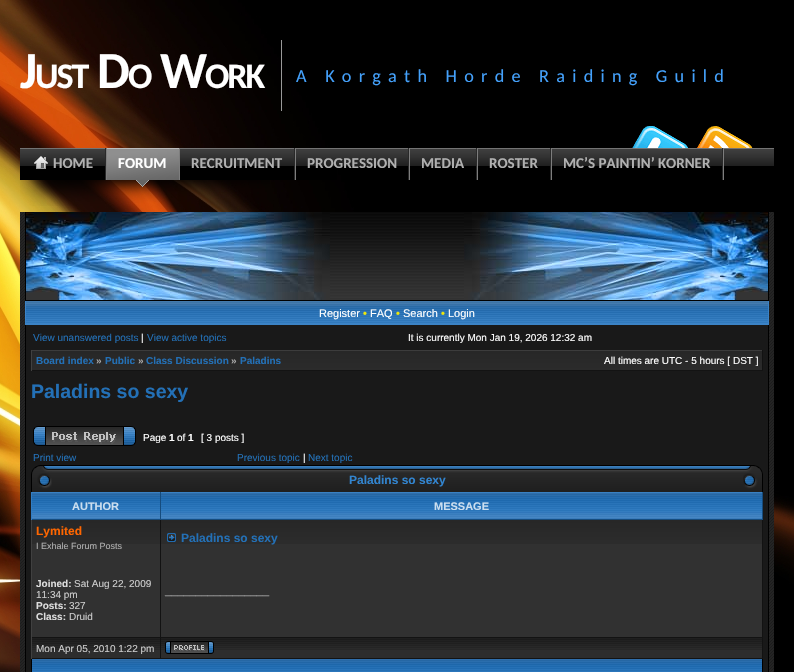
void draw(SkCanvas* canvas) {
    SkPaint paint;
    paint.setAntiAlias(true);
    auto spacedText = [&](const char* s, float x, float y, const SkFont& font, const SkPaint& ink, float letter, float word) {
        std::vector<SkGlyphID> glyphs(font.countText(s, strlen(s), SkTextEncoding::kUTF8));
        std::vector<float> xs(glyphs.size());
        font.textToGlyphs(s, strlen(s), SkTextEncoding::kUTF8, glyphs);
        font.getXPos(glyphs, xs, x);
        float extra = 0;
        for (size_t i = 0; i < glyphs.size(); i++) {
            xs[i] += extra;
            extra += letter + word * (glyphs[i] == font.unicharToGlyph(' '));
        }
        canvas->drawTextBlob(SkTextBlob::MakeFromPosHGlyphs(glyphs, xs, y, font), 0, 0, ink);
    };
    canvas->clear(0xFFFFFFFF);
    canvas->drawImageRect(SkImages::DeferredFromEncodedData(SkData::MakeFromFileName("img1.png")), SkRect::MakeXYWH(0, 0, 794, 672), SkSamplingOptions());
    canvas->drawImageRect(SkImages::DeferredFromEncodedData(SkData::MakeFromFileName("img2.png")), SkRect::MakeXYWH(20, 180, 250, 26), SkSamplingOptions());
    SkFont font1(fontMgr->matchFamilyStyle("Carlito", SkFontStyle::Bold()), 52);
    font1.setSubpixel(true);
    paint.setColor(0xFFFFFFFF);
    spacedText("J", 20, 88, font1, paint, -2, 0);
    SkFont font2(fontMgr->matchFamilyStyle("Carlito", SkFontStyle::Bold()), 36);
    font2.setSubpixel(true);
    spacedText("UST", 35, 88, font2, paint, -2, 0);
    spacedText("D", 97, 88, font1, paint, -2, 0);
    spacedText("O", 128, 88, font2, paint, -2, 0);
    spacedText("W", 160, 88, font1, paint, -2, 0);
    spacedText("ORK", 205, 88, font2, paint, -2, 0);
    paint.setColor(0xFF999999);
    canvas->drawRect(SkRect::MakeXYWH(281, 40, 1, 71), paint);
    SkFont font3(fontMgr->matchFamilyStyle("Carlito", SkFontStyle::Normal()), 18.2f);
    font3.setSubpixel(true);
    paint.setColor(0xFF44A1FB);
    spacedText("A Korgath Horde Raiding Guild", 296, 82, font3, paint, 7.25f, 0);
    canvas->drawImageRect(SkImages::DeferredFromEncodedData(SkData::MakeFromFileName("img3.png")), SkRect::MakeXYWH(632, 126, 56, 22), SkSamplingOptions());
    canvas->drawImageRect(SkImages::DeferredFromEncodedData(SkData::MakeFromFileName("img4.png")), SkRect::MakeXYWH(697, 126, 56, 22), SkSamplingOptions());
    paint.setColor(0xFF000000);
    canvas->drawRect(SkRect::MakeXYWH(20, 166, 317, 14), paint);
    canvas->drawImageRect(SkImages::DeferredFromEncodedData(SkData::MakeFromFileName("img5.png")), SkRect::MakeXYWH(20, 148, 754, 18), SkSamplingOptions());
    canvas->drawImageRect(SkImages::DeferredFromEncodedData(SkData::MakeFromFileName("img6.png")), SkRect::MakeXYWH(105, 148, 2, 32), SkSamplingOptions());
    canvas->drawImageRect(SkImages::DeferredFromEncodedData(SkData::MakeFromFileName("img7.png")), SkRect::MakeXYWH(34, 156, 14, 13), SkSamplingOptions());
    SkFont font4(fontMgr->matchFamilyStyle("Carlito", SkFontStyle::Bold()), 15);
    font4.setSubpixel(true);
    paint.setColor(0xFFB0B0B0);
    canvas->drawString("HOME", 53, 168, font4, paint);
    canvas->drawImageRect(SkImages::DeferredFromEncodedData(SkData::MakeFromFileName("img8.png")), SkRect::MakeXYWH(179, 148, 1, 32), SkSamplingOptions());
    canvas->drawImageRect(SkImages::DeferredFromEncodedData(SkData::MakeFromFileName("img9.png")), SkRect::MakeXYWH(107, 148, 72, 32), SkSamplingOptions());
    paint.setColor(0xFFFFFFFF);
    canvas->drawString("FORUM", 118, 168, font4, paint);
    canvas->drawImageRect(SkImages::DeferredFromEncodedData(SkData::MakeFromFileName("img10.png")), SkRect::MakeXYWH(136, 180, 13, 7), SkSamplingOptions());
    canvas->drawImageRect(SkImages::DeferredFromEncodedData(SkData::MakeFromFileName("img6.png")), SkRect::MakeXYWH(294, 148, 2, 32), SkSamplingOptions());
    paint.setColor(0xFFB0B0B0);
    canvas->drawString("RECRUITMENT", 191, 168, font4, paint);
    canvas->drawImageRect(SkImages::DeferredFromEncodedData(SkData::MakeFromFileName("img6.png")), SkRect::MakeXYWH(408, 148, 2, 32), SkSamplingOptions());
    canvas->drawString("PROGRESSION", 307, 168, font4, paint);
    canvas->drawImageRect(SkImages::DeferredFromEncodedData(SkData::MakeFromFileName("img6.png")), SkRect::MakeXYWH(476, 148, 2, 32), SkSamplingOptions());
    canvas->drawString("MEDIA", 421, 168, font4, paint);
    canvas->drawImageRect(SkImages::DeferredFromEncodedData(SkData::MakeFromFileName("img6.png")), SkRect::MakeXYWH(550, 148, 2, 32), SkSamplingOptions());
    canvas->drawString("ROSTER", 489, 168, font4, paint);
    canvas->drawImageRect(SkImages::DeferredFromEncodedData(SkData::MakeFromFileName("img6.png")), SkRect::MakeXYWH(722, 148, 2, 32), SkSamplingOptions());
    canvas->drawString("MC’S PAINTIN’ KORNER", 563, 168, font4, paint);
    canvas->drawImageRect(SkImages::DeferredFromEncodedData(SkData::MakeFromFileName("img11.png")), SkRect::MakeXYWH(20, 212, 754, 460), SkSamplingOptions());
    paint.setColor(0xFF000000);
    canvas->drawRect(SkRect::MakeXYWH(768, 212, 1, 460), paint);
    canvas->drawRect(SkRect::MakeXYWH(25, 212, 1, 460), paint);
    canvas->drawImageRect(SkImages::DeferredFromEncodedData(SkData::MakeFromFileName("img12.png")), SkRect::MakeXYWH(330, 212, 134, 88), SkSamplingOptions());
    canvas->drawImageRect(SkImages::DeferredFromEncodedData(SkData::MakeFromFileName("img13.png")), SkRect::MakeXYWH(26, 212, 304, 88), SkSamplingOptions());
    canvas->drawImageRect(SkImages::DeferredFromEncodedData(SkData::MakeFromFileName("img14.png")), SkRect::MakeXYWH(464, 212, 304, 88), SkSamplingOptions());
    canvas->drawRect(SkRect::MakeXYWH(25, 300, 744, 1), paint);
    paint.setColor(0xFF3B83C6);
    canvas->drawRect(SkRect::MakeXYWH(25, 301, 744, 24), paint);
    canvas->drawImageRect(SkImages::DeferredFromEncodedData(SkData::MakeFromFileName("img15.png")), SkRect::MakeXYWH(26, 301, 742, 22), SkSamplingOptions());
    SkFont font5(fontMgr->matchFamilyStyle("Liberation Sans", SkFontStyle::Normal()), 11);
    font5.setSubpixel(true);
    paint.setColor(0xFFFFFFFF);
    canvas->drawString("Register", 319, 317, font5, paint);
    paint.setColor(0xFFF0E80A);
    canvas->drawString("•", 363, 317, font5, paint);
    paint.setColor(0xFFFFFFFF);
    canvas->drawString("FAQ", 370, 317, font5, paint);
    paint.setColor(0xFFF0E80A);
    canvas->drawString("•", 396, 317, font5, paint);
    paint.setColor(0xFFFFFFFF);
    canvas->drawString("Search", 403, 317, font5, paint);
    paint.setColor(0xFFF0E80A);
    canvas->drawString("•", 441, 317, font5, paint);
    paint.setColor(0xFFFFFFFF);
    canvas->drawString("Login", 448, 317, font5, paint);
    paint.setColor(0xFF191919);
    canvas->drawRect(SkRect::MakeXYWH(26, 325, 742, 347), paint);
    SkFont font6(fontMgr->matchFamilyStyle("Liberation Sans", SkFontStyle::Normal()), 10);
    font6.setSubpixel(true);
    paint.setColor(0xFF2370B6);
    canvas->drawString("View unanswered posts", 33, 341, font6, paint);
    paint.setColor(0xFFFFFFFF);
    canvas->drawString("|", 141, 341, font6, paint);
    paint.setColor(0xFF2370B6);
    canvas->drawString("View active topics", 147, 341, font6, paint);
    paint.setColor(0xFFFFFFFF);
    canvas->drawString("It is currently Mon Jan 19, 2026 12:32 am", 408, 341, font6, paint);
    canvas->drawImageRect(SkImages::DeferredFromEncodedData(SkData::MakeFromFileName("img16.png")), SkRect::MakeXYWH(32, 351, 730, 19), SkSamplingOptions());
    paint.setColor(0xFF3C3C3C);
    canvas->drawRect(SkRect::MakeXYWH(31, 350, 732, 1), paint);
    paint.setColor(0xFF121212);
    canvas->drawRect(SkRect::MakeXYWH(762, 350, 1, 21), paint);
    paint.setColor(0xFF131313);
    canvas->drawRect(SkRect::MakeXYWH(31, 370, 732, 1), paint);
    paint.setColor(0xFF404040);
    canvas->drawRect(SkRect::MakeXYWH(31, 350, 1, 21), paint);
    SkFont font7(fontMgr->matchFamilyStyle("Liberation Sans", SkFontStyle::Bold()), 10);
    font7.setSubpixel(true);
    paint.setColor(0xFF2370B6);
    canvas->drawString("Board index", 36, 364, font7, paint);
    paint.setColor(0xFFAAAAAA);
    canvas->drawString("»", 96, 364, font7, paint);
    paint.setColor(0xFF2370B6);
    canvas->drawString("Public", 105, 364, font7, paint);
    paint.setColor(0xFFAAAAAA);
    canvas->drawString("»", 138, 364, font7, paint);
    paint.setColor(0xFF2370B6);
    canvas->drawString("Class Discussion", 146, 364, font7, paint);
    paint.setColor(0xFFAAAAAA);
    canvas->drawString("»", 231, 364, font7, paint);
    paint.setColor(0xFF2370B6);
    canvas->drawString("Paladins", 240, 364, font7, paint);
    paint.setColor(0xFFFFFFFF);
    canvas->drawString("All times are UTC - 5 hours [ DST ]", 604, 364, font6, paint);
    SkFont font8(fontMgr->matchFamilyStyle("Liberation Sans", SkFontStyle::Bold()), 19.5f);
    font8.setSubpixel(true);
    paint.setColor(0xFF2370B6);
    canvas->drawString("Paladins so sexy", 31, 398, font8, paint);
    canvas->drawImageRect(SkImages::DeferredFromEncodedData(SkData::MakeFromFileName("img17.png")), SkRect::MakeXYWH(33, 426, 103, 20), SkSamplingOptions());
    paint.setColor(0xFFFFFFFF);
    canvas->drawString("Page", 143, 441, font6, paint);
    canvas->drawString("1", 169, 441, font7, paint);
    canvas->drawString("of", 177, 441, font6, paint);
    canvas->drawString("1", 188, 441, font7, paint);
    canvas->drawString("[ 3 posts ]", 201, 441, font6, paint);
    paint.setColor(0xFF2370B6);
    canvas->drawString("Print view", 33, 461, font6, paint);
    canvas->drawString("Previous topic", 237, 461, font6, paint);
    paint.setColor(0xFFFFFFFF);
    canvas->drawString("|", 303, 461, font6, paint);
    paint.setColor(0xFF2370B6);
    canvas->drawString("Next topic", 308, 461, font6, paint);
    canvas->drawImageRect(SkImages::DeferredFromEncodedData(SkData::MakeFromFileName("img18.png")), SkRect::MakeXYWH(52, 465, 691, 27), SkSamplingOptions());
    canvas->drawImageRect(SkImages::DeferredFromEncodedData(SkData::MakeFromFileName("img19.png")), SkRect::MakeXYWH(31, 465, 21, 27), SkSamplingOptions());
    canvas->drawImageRect(SkImages::DeferredFromEncodedData(SkData::MakeFromFileName("img20.png")), SkRect::MakeXYWH(743, 465, 20, 27), SkSamplingOptions());
    SkFont font9(fontMgr->matchFamilyStyle("Liberation Sans", SkFontStyle::Bold()), 12);
    font9.setSubpixel(true);
    paint.setColor(0xFF3285D0);
    canvas->drawString("Paladins so sexy", 349, 484, font9, paint);
    paint.setColor(0xFF000000);
    canvas->drawRect(SkRect::MakeXYWH(762, 659, 1, 13), paint);
    canvas->drawRect(SkRect::MakeXYWH(31, 659, 1, 13), paint);
    canvas->drawImageRect(SkImages::DeferredFromEncodedData(SkData::MakeFromFileName("img21.png")), SkRect::MakeXYWH(32, 493, 128, 26), SkSamplingOptions());
    paint.setColor(0xFF3981C3);
    canvas->drawRect(SkRect::MakeXYWH(31, 492, 732, 1), paint);
    paint.setColor(0xFF131313);
    canvas->drawRect(SkRect::MakeXYWH(161, 658, 602, 1), paint);
    paint.setColor(0xFF121212);
    canvas->drawRect(SkRect::MakeXYWH(762, 519, 1, 140), paint);
    paint.setColor(0xFF164C7D);
    canvas->drawRect(SkRect::MakeXYWH(762, 492, 1, 28), paint);
    paint.setColor(0xFF313131);
    canvas->drawRect(SkRect::MakeXYWH(32, 544, 730, 93), paint);
    paint.setColor(0xFF121212);
    canvas->drawRect(SkRect::MakeXYWH(160, 637, 1, 22), paint);
    paint.setColor(0xFF131313);
    canvas->drawRect(SkRect::MakeXYWH(160, 637, 603, 1), paint);
    paint.setColor(0xFF121212);
    canvas->drawRect(SkRect::MakeXYWH(160, 519, 1, 119), paint);
    paint.setColor(0xFF164C7D);
    canvas->drawRect(SkRect::MakeXYWH(160, 519, 603, 1), paint);
    canvas->drawRect(SkRect::MakeXYWH(160, 492, 1, 28), paint);
    paint.setColor(0xFF131313);
    canvas->drawRect(SkRect::MakeXYWH(31, 658, 130, 1), paint);
    paint.setColor(0xFF404040);
    canvas->drawRect(SkRect::MakeXYWH(31, 637, 1, 22), paint);
    paint.setColor(0xFF131313);
    canvas->drawRect(SkRect::MakeXYWH(31, 637, 130, 1), paint);
    paint.setColor(0xFF404040);
    canvas->drawRect(SkRect::MakeXYWH(31, 519, 1, 119), paint);
    paint.setColor(0xFF164C7D);
    canvas->drawRect(SkRect::MakeXYWH(31, 519, 130, 1), paint);
    paint.setColor(0xFF317CC2);
    canvas->drawRect(SkRect::MakeXYWH(31, 492, 1, 28), paint);
    SkFont font10(fontMgr->matchFamilyStyle("Liberation Sans", SkFontStyle::Bold()), 11);
    font10.setSubpixel(true);
    paint.setColor(0xFFCCDFF0);
    canvas->drawString("AUTHOR", 72, 510, font10, paint);
    canvas->drawImageRect(SkImages::DeferredFromEncodedData(SkData::MakeFromFileName("img22.png")), SkRect::MakeXYWH(161, 493, 601, 26), SkSamplingOptions());
    canvas->drawString("MESSAGE", 434, 510, font10, paint);
    canvas->drawImageRect(SkImages::DeferredFromEncodedData(SkData::MakeFromFileName("img23.png")), SkRect::MakeXYWH(32, 520, 128, 24), SkSamplingOptions());
    paint.setColor(0xFFFF6600);
    canvas->drawString("Lymited", 36, 535, font9, paint);
    SkFont font11(fontMgr->matchFamilyStyle("Liberation Sans", SkFontStyle::Normal()), 9);
    font11.setSubpixel(true);
    paint.setColor(0xFFB0B0B0);
    canvas->drawString("I Exhale Forum Posts", 36, 549, font11, paint);
    paint.setColor(0xFFDDDDDD);
    canvas->drawString("Joined:", 36, 587, font7, paint);
    paint.setColor(0xFFCCCCCC);
    canvas->drawString("Sat Aug 22, 2009", 74, 587, font6, paint);
    canvas->drawString("11:34 pm", 36, 598, font6, paint);
    paint.setColor(0xFFDDDDDD);
    canvas->drawString("Posts:", 36, 609, font7, paint);
    paint.setColor(0xFFCCCCCC);
    canvas->drawString("327", 69, 609, font6, paint);
    paint.setColor(0xFFDDDDDD);
    canvas->drawString("Class:", 36, 620, font7, paint);
    paint.setColor(0xFFCCCCCC);
    canvas->drawString("Druid", 69, 620, font6, paint);
    canvas->drawImageRect(SkImages::DeferredFromEncodedData(SkData::MakeFromFileName("img24.png")), SkRect::MakeXYWH(161, 520, 601, 24), SkSamplingOptions());
    canvas->drawImageRect(SkImages::DeferredFromEncodedData(SkData::MakeFromFileName("img25.png")), SkRect::MakeXYWH(167, 533, 9, 9), SkSamplingOptions());
    paint.setColor(0xFF2370B6);
    canvas->drawString("Paladins so sexy", 181, 542, font9, paint);
    paint.setColor(0xFFAAAAAA);
    canvas->drawString("_________________", 165, 594, font5, paint);
    paint.setColor(0xFF2D2D2D);
    canvas->drawRect(SkRect::MakeXYWH(32, 650, 128, 8), paint);
    canvas->drawImageRect(SkImages::DeferredFromEncodedData(SkData::MakeFromFileName("img26.png")), SkRect::MakeXYWH(32, 638, 128, 12), SkSamplingOptions());
    paint.setColor(0xFFCCCCCC);
    canvas->drawString("Mon Apr 05, 2010 1:22 pm", 36, 652, font6, paint);
    paint.setColor(0xFF2D2D2D);
    canvas->drawRect(SkRect::MakeXYWH(161, 650, 601, 8), paint);
    canvas->drawImageRect(SkImages::DeferredFromEncodedData(SkData::MakeFromFileName("img27.png")), SkRect::MakeXYWH(161, 638, 601, 12), SkSamplingOptions());
    canvas->drawImageRect(SkImages::DeferredFromEncodedData(SkData::MakeFromFileName("img28.png")), SkRect::MakeXYWH(165, 641, 49, 13), SkSamplingOptions());
    canvas->drawImageRect(SkImages::DeferredFromEncodedData(SkData::MakeFromFileName("img29.png")), SkRect::MakeXYWH(32, 659, 730, 13), SkSamplingOptions());
}
